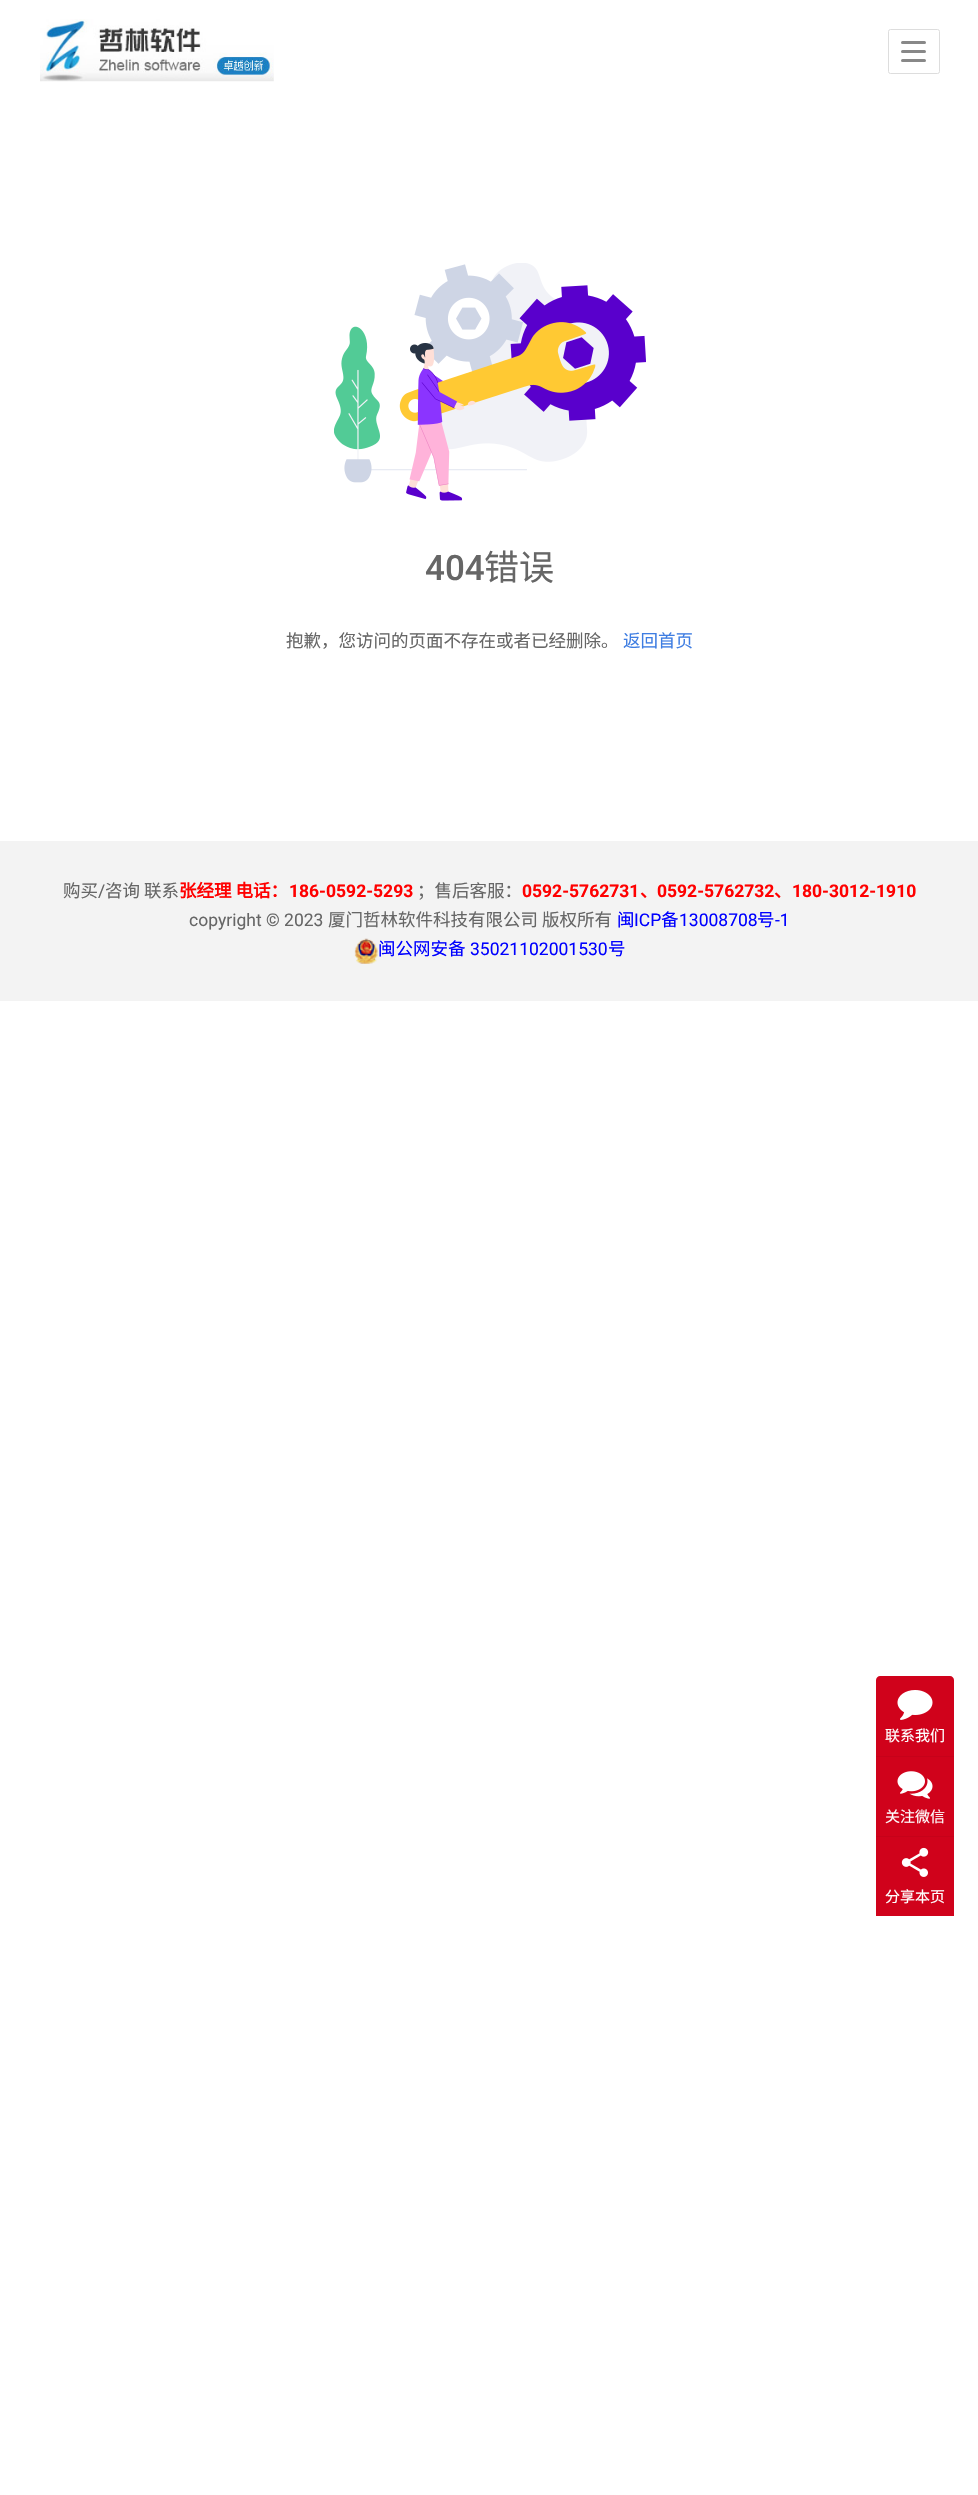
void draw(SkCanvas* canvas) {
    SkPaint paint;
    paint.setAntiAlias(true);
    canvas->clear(0xFFFFFFFF);
    canvas->drawImageRect(SkImages::DeferredFromEncodedData(SkData::MakeFromFileName("img1.png")), SkRect::MakeXYWH(40, 19, 234, 63), SkSamplingOptions());
    paint.setStyle(SkPaint::kStroke_Style);
    paint.setStrokeWidth(1);
    paint.setColor(0xFFDDDDDD);
    canvas->drawRoundRect(SkRect::MakeXYWH(888.5f, 29.5f, 51, 44), 2, 2, paint);
    paint.setStyle(SkPaint::kFill_Style);
    paint.setColor(0xFF888888);
    canvas->drawRoundRect(SkRect::MakeXYWH(901, 41, 25, 3), 1.5f, 1.5f, paint);
    canvas->drawRoundRect(SkRect::MakeXYWH(901, 50, 25, 3), 1.5f, 1.5f, paint);
    canvas->drawRoundRect(SkRect::MakeXYWH(901, 59, 25, 3), 1.5f, 1.5f, paint);
    canvas->drawImageRect(SkImages::DeferredFromEncodedData(SkData::MakeFromFileName("img2.png")), SkRect::MakeXYWH(334, 263, 312, 238), SkSamplingOptions());
    SkFont font1(fontMgr->matchFamilyStyle("Roboto", SkFontStyle(500, SkFontStyle::kNormal_Width, SkFontStyle::kUpright_Slant)), 35);
    font1.setSubpixel(true);
    paint.setColor(0xFF666666);
    canvas->drawString("404", 425, 580, font1, paint);
    SkFont font2(fontMgr->matchFamilyStyle("Noto Sans CJK SC", SkFontStyle::Normal()), 35);
    font2.setSubpixel(true);
    canvas->drawString("错误", 484, 580, font2, paint);
    SkFont font3(fontMgr->matchFamilyStyle("Noto Sans CJK SC", SkFontStyle::Normal()), 17.5f);
    font3.setSubpixel(true);
    canvas->drawString("抱歉，您访问的页面不存在或者已经删除。", 286, 647, font3, paint);
    paint.setColor(0xFF3E7DE2);
    canvas->drawString("返回首页", 623, 647, font3, paint);
    paint.setColor(0xFFF3F3F3);
    canvas->drawRect(SkRect::MakeXYWH(0, 841, 978, 160), paint);
    paint.setColor(0xFF666666);
    canvas->drawString("购买", 63, 897, font3, paint);
    SkFont font4(fontMgr->matchFamilyStyle("Roboto", SkFontStyle::Normal()), 17.5f);
    font4.setSubpixel(true);
    canvas->drawString("/", 98, 897, font4, paint);
    canvas->drawString("咨询 联系", 105, 897, font3, paint);
    SkFont font5(fontMgr->matchFamilyStyle("Noto Sans CJK SC", SkFontStyle::Bold()), 17.5f);
    font5.setSubpixel(true);
    paint.setColor(0xFFFF0000);
    canvas->drawString("张经理 电话：", 179, 897, font5, paint);
    SkFont font6(fontMgr->matchFamilyStyle("Roboto", SkFontStyle::Bold()), 17.5f);
    font6.setSubpixel(true);
    canvas->drawString("186-0592-5293", 289, 897, font6, paint);
    paint.setColor(0xFF666666);
    canvas->drawString("；售后客服：", 417, 897, font3, paint);
    paint.setColor(0xFFFF0000);
    canvas->drawString("0592-5762731", 522, 897, font6, paint);
    canvas->drawString("、", 640, 897, font5, paint);
    canvas->drawString("0592-5762732", 657, 897, font6, paint);
    canvas->drawString("、", 774, 897, font5, paint);
    canvas->drawString("180-3012-1910", 792, 897, font6, paint);
    paint.setColor(0xFF666666);
    canvas->drawString("copyright © 2023", 189, 926, font4, paint);
    canvas->drawString("厦门哲林软件科技有限公司", 328, 926, font3, paint);
    canvas->drawString("版权所有", 542, 926, font3, paint);
    paint.setColor(0xFF0000FF);
    canvas->drawString("闽", 617, 926, font3, paint);
    canvas->drawString("ICP", 634, 926, font4, paint);
    canvas->drawString("备", 661, 926, font3, paint);
    canvas->drawString("13008708", 679, 926, font4, paint);
    canvas->drawString("号", 757, 926, font3, paint);
    canvas->drawString("-1", 775, 926, font4, paint);
    canvas->drawImageRect(SkImages::DeferredFromEncodedData(SkData::MakeFromFileName("img3.png")), SkRect::MakeXYWH(354, 938, 24, 26), SkSamplingOptions());
    canvas->drawString("闽公网安备", 378, 955, font3, paint);
    canvas->drawString("35021102001530", 470, 955, font4, paint);
    canvas->drawString("号", 608, 955, font3, paint);
    paint.setColor(0xFFD0021B);
    canvas->drawPath(SkPathBuilder().moveTo(880, 1676).lineTo(950, 1676).cubicTo(952, 1676, 954, 1678, 954, 1680).lineTo(954, 1756).lineTo(876, 1756).lineTo(876, 1680).cubicTo(876, 1678, 878, 1676, 880, 1676).close().detach(), paint);
    canvas->drawImageRect(SkImages::DeferredFromEncodedData(SkData::MakeFromFileName("img4.png")), SkRect::MakeXYWH(897, 1690, 36, 30), SkSamplingOptions());
    SkFont font7(fontMgr->matchFamilyStyle("Noto Sans CJK SC", SkFontStyle::Normal()), 15);
    font7.setSubpixel(true);
    paint.setColor(0xFFFFFFFF);
    canvas->drawString("联系我们", 885, 1741, font7, paint);
    paint.setColor(0xFFD0021B);
    canvas->drawRect(SkRect::MakeXYWH(876, 1757, 78, 79), paint);
    paint.setColor(0xFFC6021A);
    canvas->drawRect(SkRect::MakeXYWH(876, 1756, 78, 1), paint);
    canvas->drawImageRect(SkImages::DeferredFromEncodedData(SkData::MakeFromFileName("img5.png")), SkRect::MakeXYWH(897, 1771, 36, 28), SkSamplingOptions());
    paint.setColor(0xFFFFFFFF);
    canvas->drawString("关注微信", 885, 1822, font7, paint);
    paint.setColor(0xFFD0021B);
    canvas->drawRect(SkRect::MakeXYWH(876, 1837, 78, 79), paint);
    paint.setColor(0xFFC6021A);
    canvas->drawRect(SkRect::MakeXYWH(876, 1836, 78, 1), paint);
    canvas->drawImageRect(SkImages::DeferredFromEncodedData(SkData::MakeFromFileName("img6.png")), SkRect::MakeXYWH(901, 1847, 28, 30), SkSamplingOptions());
    paint.setColor(0xFFFFFFFF);
    canvas->drawString("分享本页", 885, 1902, font7, paint);
}
